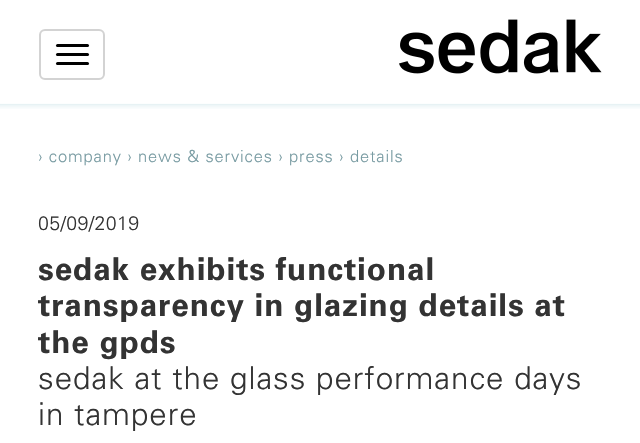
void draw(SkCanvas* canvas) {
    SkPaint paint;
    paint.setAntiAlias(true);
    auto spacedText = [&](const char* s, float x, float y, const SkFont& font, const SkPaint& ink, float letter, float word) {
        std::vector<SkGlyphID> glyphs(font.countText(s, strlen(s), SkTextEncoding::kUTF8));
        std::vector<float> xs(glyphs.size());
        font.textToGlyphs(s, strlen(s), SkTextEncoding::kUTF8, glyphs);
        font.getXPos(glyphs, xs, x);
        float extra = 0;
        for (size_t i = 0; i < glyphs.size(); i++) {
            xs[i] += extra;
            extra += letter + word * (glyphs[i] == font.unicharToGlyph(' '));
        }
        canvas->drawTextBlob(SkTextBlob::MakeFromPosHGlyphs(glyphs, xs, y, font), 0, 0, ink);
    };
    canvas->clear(0xFFFFFFFF);
    paint.setStyle(SkPaint::kStroke_Style);
    paint.setStrokeWidth(2);
    paint.setColor(0xFFD3D3D3);
    canvas->drawRoundRect(SkRect::MakeXYWH(40, 30, 64, 49), 5, 5, paint);
    paint.setStyle(SkPaint::kFill_Style);
    paint.setColor(0xFF000000);
    canvas->drawRoundRect(SkRect::MakeXYWH(56, 44, 33, 3), 1.5f, 1.5f, paint);
    canvas->drawRoundRect(SkRect::MakeXYWH(56, 53, 33, 3), 1.5f, 1.5f, paint);
    canvas->drawRoundRect(SkRect::MakeXYWH(56, 62, 33, 3), 1.5f, 1.5f, paint);
    canvas->drawImageRect(SkImages::DeferredFromEncodedData(SkData::MakeFromFileName("img1.png")), SkRect::MakeXYWH(399, 19, 203, 55), SkSamplingOptions());
    {
        const SkColor colors[] = {0xFFFFFFFF, 0xFFFBFDFD};
        const float stops[] = {0, 1};
        const SkPoint ends[] = {{320, 99}, {320, 105}};
        paint.setShader(SkGradientShader::MakeLinear(ends, colors, stops, 2, SkTileMode::kClamp));
        paint.setAlpha(255);
    }
    canvas->drawRect(SkRect::MakeXYWH(0, 103, 640, 2), paint);
    {
        const SkColor colors[] = {0x4DA9CFDA, 0x00A9CFDA};
        const float stops[] = {0, 1};
        const SkPoint ends[] = {{320, 103}, {320, 110}};
        paint.setShader(SkGradientShader::MakeLinear(ends, colors, stops, 2, SkTileMode::kClamp));
        paint.setAlpha(255);
    }
    canvas->drawRect(SkRect::MakeXYWH(0, 104, 640, 5), paint);
    SkFont font1(fontMgr->matchFamilyStyle("Univers", SkFontStyle(300, SkFontStyle::kNormal_Width, SkFontStyle::kUpright_Slant)), 16.5f);
    font1.setSubpixel(true);
    paint.setShader(nullptr);
    paint.setColor(0xFF789BA2);
    spacedText("› company › news & services › press › details", 38, 162, font1, paint, 0.85f, 0);
    SkFont font2(fontMgr->matchFamilyStyle("Univers", SkFontStyle(300, SkFontStyle::kNormal_Width, SkFontStyle::kUpright_Slant)), 19.5f);
    font2.setSubpixel(true);
    paint.setColor(0xFF333333);
    spacedText("05/09/2019", 38, 230, font2, paint, 0.4f, 0);
    SkFont font3(fontMgr->matchFamilyStyle("Univers", SkFontStyle::Bold()), 31.4f);
    font3.setSubpixel(true);
    spacedText("sedak exhibits functional", 38, 280, font3, paint, 0.95f, 0);
    spacedText("transparency in glazing details at", 38, 316, font3, paint, 0.95f, 0);
    spacedText("the gpds", 38, 353, font3, paint, 0.95f, 0);
    SkFont font4(fontMgr->matchFamilyStyle("Univers", SkFontStyle(300, SkFontStyle::kNormal_Width, SkFontStyle::kUpright_Slant)), 31.4f);
    font4.setSubpixel(true);
    spacedText("sedak at the glass performance days", 38, 389, font4, paint, 0.95f, 0);
    spacedText("in tampere", 38, 425, font4, paint, 0.95f, 0);
}
